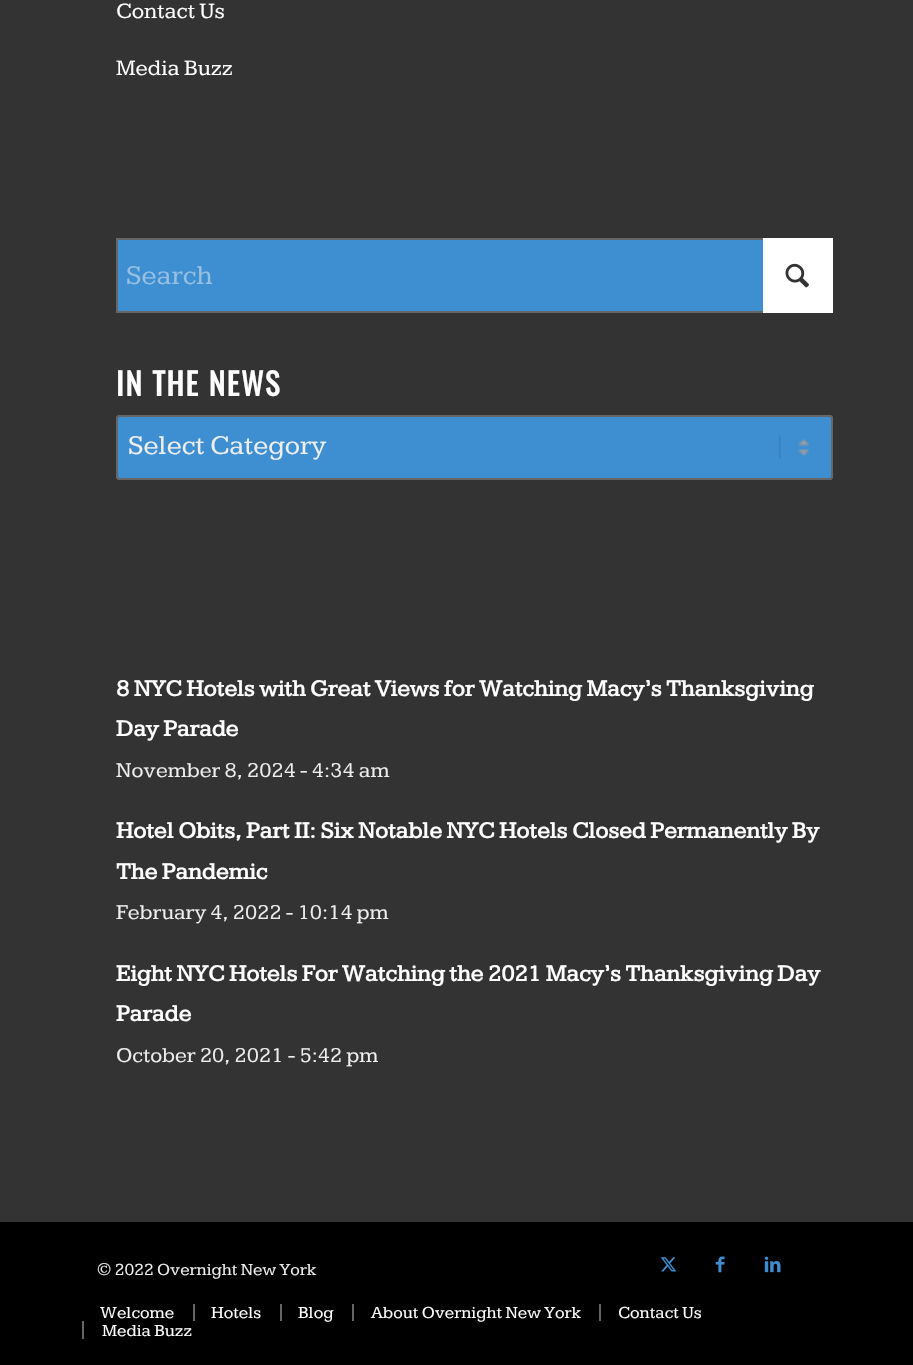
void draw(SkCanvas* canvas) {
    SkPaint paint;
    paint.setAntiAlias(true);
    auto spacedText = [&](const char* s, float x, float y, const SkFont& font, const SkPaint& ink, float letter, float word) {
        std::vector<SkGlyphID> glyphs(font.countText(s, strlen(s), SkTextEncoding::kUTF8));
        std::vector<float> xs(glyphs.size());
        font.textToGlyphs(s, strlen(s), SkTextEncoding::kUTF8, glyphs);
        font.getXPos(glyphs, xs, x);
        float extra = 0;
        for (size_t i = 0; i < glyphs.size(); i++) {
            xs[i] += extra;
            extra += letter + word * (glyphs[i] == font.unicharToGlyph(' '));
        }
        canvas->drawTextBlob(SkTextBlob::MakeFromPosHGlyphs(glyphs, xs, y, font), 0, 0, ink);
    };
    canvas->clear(0xFF333333);
    SkFont font1(fontMgr->matchFamilyStyle("Kameron", SkFontStyle::Normal()), 22.75f);
    font1.setSubpixel(true);
    paint.setColor(0xFFFFFFFF);
    canvas->drawString("Contact Us", 116, 18, font1, paint);
    canvas->drawString("Media Buzz", 116, 75, font1, paint);
    paint.setColor(0xFF3E8FD1);
    canvas->drawRect(SkRect::MakeXYWH(118, 240, 645, 71), paint);
    paint.setStyle(SkPaint::kStroke_Style);
    paint.setStrokeWidth(2);
    paint.setColor(0xFF666666);
    canvas->drawRect(SkRect::MakeXYWH(117, 239, 715, 73), paint);
    paint.setStyle(SkPaint::kFill_Style);
    paint.setColor(0xFFFFFFFF);
    canvas->drawRect(SkRect::MakeXYWH(763, 238, 70, 75), paint);
    SkFont font2(fontMgr->matchFamilyStyle("Kameron", SkFontStyle::Normal()), 28);
    font2.setSubpixel(true);
    paint.setColor(0xFF96BFE0);
    canvas->drawString("Search", 126, 284, font2, paint);
    canvas->drawImageRect(SkImages::DeferredFromEncodedData(SkData::MakeFromFileName("img1.png")), SkRect::MakeXYWH(785, 263, 24, 25), SkSamplingOptions());
    SkFont font3(fontMgr->matchFamilyStyle("Oswald", SkFontStyle::Bold()), 30.75f);
    font3.setSubpixel(true);
    paint.setColor(0xFFFFFFFF);
    spacedText("IN THE NEWS", 116, 396, font3, paint, 1.75f, 0);
    paint.setColor(0xFF3E8FD1);
    canvas->drawRoundRect(SkRect::MakeXYWH(116, 415, 717, 65), 4, 4, paint);
    canvas->drawImageRect(SkImages::DeferredFromEncodedData(SkData::MakeFromFileName("img2.png")), SkRect::MakeXYWH(778, 435, 31, 24), SkSamplingOptions());
    paint.setStyle(SkPaint::kStroke_Style);
    paint.setColor(0xFF666666);
    canvas->drawRoundRect(SkRect::MakeXYWH(117, 416, 715, 63), 3, 3, paint);
    paint.setStyle(SkPaint::kFill_Style);
    paint.setColor(0xFFEEEEEE);
    canvas->drawString("Select Category", 128, 454, font2, paint);
    SkFont font4(fontMgr->matchFamilyStyle("Kameron", SkFontStyle::Bold()), 23.8f);
    font4.setSubpixel(true);
    paint.setColor(0xFFFFFFFF);
    canvas->drawString("8 NYC Hotels with Great Views for Watching Macy’s Thanksgiving", 116, 696, font4, paint);
    canvas->drawString("Day Parade", 116, 736, font4, paint);
    SkFont font5(fontMgr->matchFamilyStyle("Kameron", SkFontStyle::Normal()), 21.9f);
    font5.setSubpixel(true);
    paint.setColor(0xFFEEEEEE);
    canvas->drawString("November 8, 2024 - 4:34 am", 116, 777, font5, paint);
    paint.setColor(0xFFFFFFFF);
    canvas->drawString("Hotel Obits, Part II: Six Notable NYC Hotels Closed Permanently By", 116, 838, font4, paint);
    canvas->drawString("The Pandemic", 116, 879, font4, paint);
    paint.setColor(0xFFEEEEEE);
    canvas->drawString("February 4, 2022 - 10:14 pm", 116, 919, font5, paint);
    paint.setColor(0xFFFFFFFF);
    canvas->drawString("Eight NYC Hotels For Watching the 2021 Macy’s Thanksgiving Day", 116, 981, font4, paint);
    canvas->drawString("Parade", 116, 1021, font4, paint);
    paint.setColor(0xFFEEEEEE);
    canvas->drawString("October 20, 2021 - 5:42 pm", 116, 1062, font5, paint);
    paint.setColor(0xFF000000);
    canvas->drawRect(SkRect::MakeXYWH(0, 1222, 913, 143), paint);
    SkFont font6(fontMgr->matchFamilyStyle("Kameron", SkFontStyle::Normal()), 17.5f);
    font6.setSubpixel(true);
    paint.setColor(0xFFEEEEEE);
    canvas->drawString("© 2022 Overnight New York", 97, 1275, font6, paint);
    canvas->drawImageRect(SkImages::DeferredFromEncodedData(SkData::MakeFromFileName("img3.png")), SkRect::MakeXYWH(660, 1257, 17, 15), SkSamplingOptions());
    canvas->drawImageRect(SkImages::DeferredFromEncodedData(SkData::MakeFromFileName("img4.png")), SkRect::MakeXYWH(715, 1256, 10, 17), SkSamplingOptions());
    canvas->drawImageRect(SkImages::DeferredFromEncodedData(SkData::MakeFromFileName("img5.png")), SkRect::MakeXYWH(764, 1256, 17, 17), SkSamplingOptions());
    paint.setColor(0xFFFFFFFF);
    canvas->drawString("Welcome", 100, 1318, font6, paint);
    paint.setColor(0xFF666666);
    canvas->drawRect(SkRect::MakeXYWH(193, 1304, 2, 17), paint);
    paint.setColor(0xFFFFFFFF);
    canvas->drawString("Hotels", 211, 1318, font6, paint);
    paint.setColor(0xFF666666);
    canvas->drawRect(SkRect::MakeXYWH(280, 1304, 2, 17), paint);
    paint.setColor(0xFFFFFFFF);
    canvas->drawString("Blog", 298, 1318, font6, paint);
    paint.setColor(0xFF666666);
    canvas->drawRect(SkRect::MakeXYWH(352, 1304, 2, 17), paint);
    paint.setColor(0xFFFFFFFF);
    canvas->drawString("About Overnight New York", 371, 1318, font6, paint);
    paint.setColor(0xFF666666);
    canvas->drawRect(SkRect::MakeXYWH(599, 1304, 2, 17), paint);
    paint.setColor(0xFFFFFFFF);
    canvas->drawString("Contact Us", 618, 1318, font6, paint);
    paint.setColor(0xFF666666);
    canvas->drawRect(SkRect::MakeXYWH(82, 1321, 2, 18), paint);
    paint.setColor(0xFFFFFFFF);
    canvas->drawString("Media Buzz", 102, 1336, font6, paint);
}
